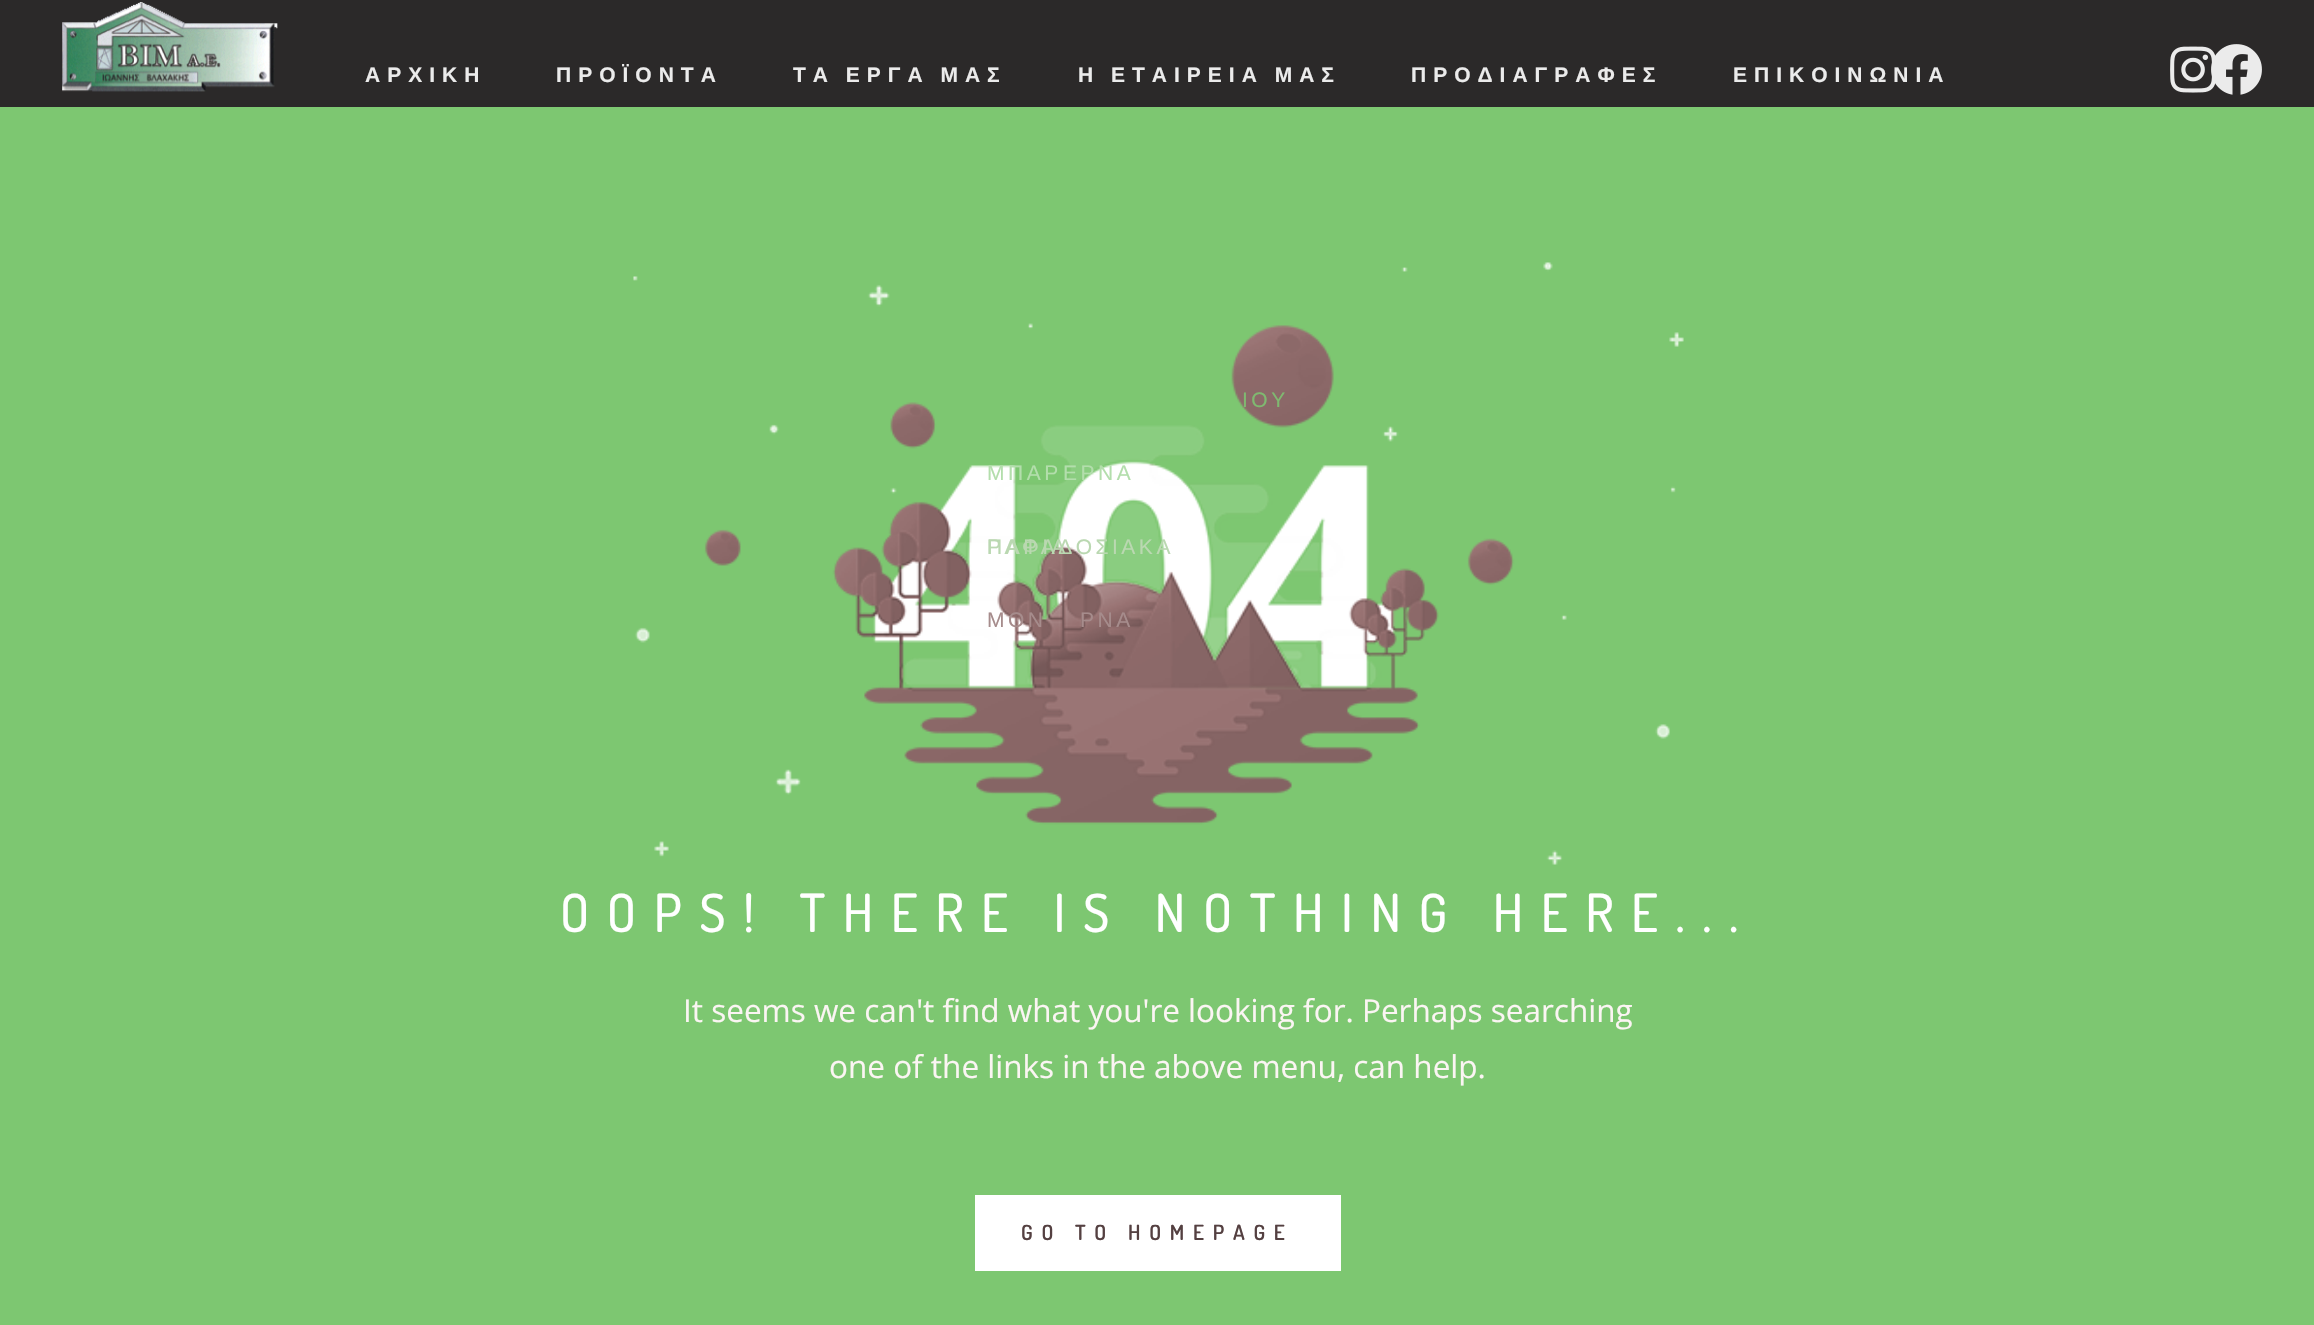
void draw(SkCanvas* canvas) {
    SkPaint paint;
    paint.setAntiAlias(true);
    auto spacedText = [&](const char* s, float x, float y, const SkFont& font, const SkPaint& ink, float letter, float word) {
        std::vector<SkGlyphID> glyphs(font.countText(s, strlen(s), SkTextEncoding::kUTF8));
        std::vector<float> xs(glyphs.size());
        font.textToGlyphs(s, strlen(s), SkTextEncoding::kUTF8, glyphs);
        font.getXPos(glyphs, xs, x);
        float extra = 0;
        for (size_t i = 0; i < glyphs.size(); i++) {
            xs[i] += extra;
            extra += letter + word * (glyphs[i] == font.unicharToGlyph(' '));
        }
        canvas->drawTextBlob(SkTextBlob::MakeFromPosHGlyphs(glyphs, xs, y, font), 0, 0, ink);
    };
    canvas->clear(0xFF7DC771);
    paint.setColor(0xFF2B2929);
    canvas->drawRect(SkRect::MakeXYWH(0, 0, 2314, 107), paint);
    canvas->drawImageRect(SkImages::DeferredFromEncodedData(SkData::MakeFromFileName("img1.png")), SkRect::MakeXYWH(62, 2, 216, 90), SkSamplingOptions());
    SkFont font1(fontMgr->matchFamilyStyle("Liberation Sans", SkFontStyle::Bold()), 21);
    font1.setSubpixel(true);
    paint.setColor(0xFFEBEBEB);
    spacedText("ΑΡΧΙΚΗ", 365, 82, font1, paint, 7, 0);
    spacedText("ΠΡΟΪΟΝΤΑ", 556, 82, font1, paint, 7, 0);
    canvas->drawImageRect(SkImages::DeferredFromEncodedData(SkData::MakeFromFileName("img4.png")), SkRect::MakeXYWH(633, 262, 1051, 603), SkSamplingOptions());
    SkFont font2(fontMgr->matchFamilyStyle("Liberation Sans", SkFontStyle::Normal()), 21);
    font2.setSubpixel(true);
    paint.setColor(0xFF7FB970);
    spacedText("ΙΟΥ", 1242, 407, font2, paint, 3.5f, -2);
    paint.setColor(0xFFB3DEAC);
    spacedText("ΜΠΑΡ", 987, 480, font2, paint, 3.5f, 0);
    paint.setColor(0xFFBAD8B1);
    spacedText("ΡΑΦΙΑ", 987, 554, font2, paint, 3.5f, 0);
    paint.setColor(0xFFB3DEAC);
    spacedText("ΕΡΝΑ", 1063, 480, font2, paint, 3.5f, 0);
    paint.setColor(0xFFBAD8B1);
    spacedText("ΠΑΡΑΔΟΣΙΑΚΑ", 987, 554, font2, paint, 3.5f, 0);
    paint.setColor(0xFFA68C8C);
    spacedText("ΜΟΝ", 987, 627, font2, paint, 3.5f, 0);
    spacedText("ΡΝΑ", 1080, 627, font2, paint, 3.5f, 0);
    paint.setColor(0xFFEBEBEB);
    spacedText("ΤΑ ΕΡΓΑ ΜΑΣ", 793, 82, font1, paint, 7, -2);
    spacedText("Η ΕΤΑΙΡΕΙΑ ΜΑΣ", 1078, 82, font1, paint, 7, -2);
    spacedText("ΠΡΟΔΙΑΓΡΑΦΕΣ", 1411, 82, font1, paint, 7, 0);
    spacedText("ΕΠΙΚΟΙΝΩΝΙΑ", 1733, 82, font1, paint, 7, 0);
    canvas->drawImageRect(SkImages::DeferredFromEncodedData(SkData::MakeFromFileName("img3.png")), SkRect::MakeXYWH(2211, 44, 51, 51), SkSamplingOptions());
    canvas->drawImageRect(SkImages::DeferredFromEncodedData(SkData::MakeFromFileName("img2.png")), SkRect::MakeXYWH(2170, 46, 46, 47), SkSamplingOptions());
    SkFont font3(fontMgr->matchFamilyStyle("Dosis", SkFontStyle(500, SkFontStyle::kNormal_Width, SkFontStyle::kUpright_Slant)), 52.5f);
    font3.setSubpixel(true);
    paint.setColor(0xFFFFFFFF);
    spacedText("OOPS! THERE IS NOTHING HERE...", 560, 932, font3, paint, 17.5f, 0);
    SkFont font4(fontMgr->matchFamilyStyle("Open Sans", SkFontStyle::Normal()), 31.5f);
    font4.setSubpixel(true);
    paint.setColor(0xFFFBF5F3);
    canvas->drawString("It seems we can't find what you're looking for. Perhaps searching", 683, 1022, font4, paint);
    canvas->drawString("one of the links in the above menu, can help.", 829, 1078, font4, paint);
    paint.setColor(0xFFFFFFFF);
    canvas->drawRect(SkRect::MakeXYWH(975, 1195, 366, 76), paint);
    SkFont font5(fontMgr->matchFamilyStyle("Dosis", SkFontStyle(600, SkFontStyle::kNormal_Width, SkFontStyle::kUpright_Slant)), 21);
    font5.setSubpixel(true);
    paint.setColor(0xFF544041);
    spacedText("GO TO HOMEPAGE", 1021, 1240, font5, paint, 8.75f, 0);
}
